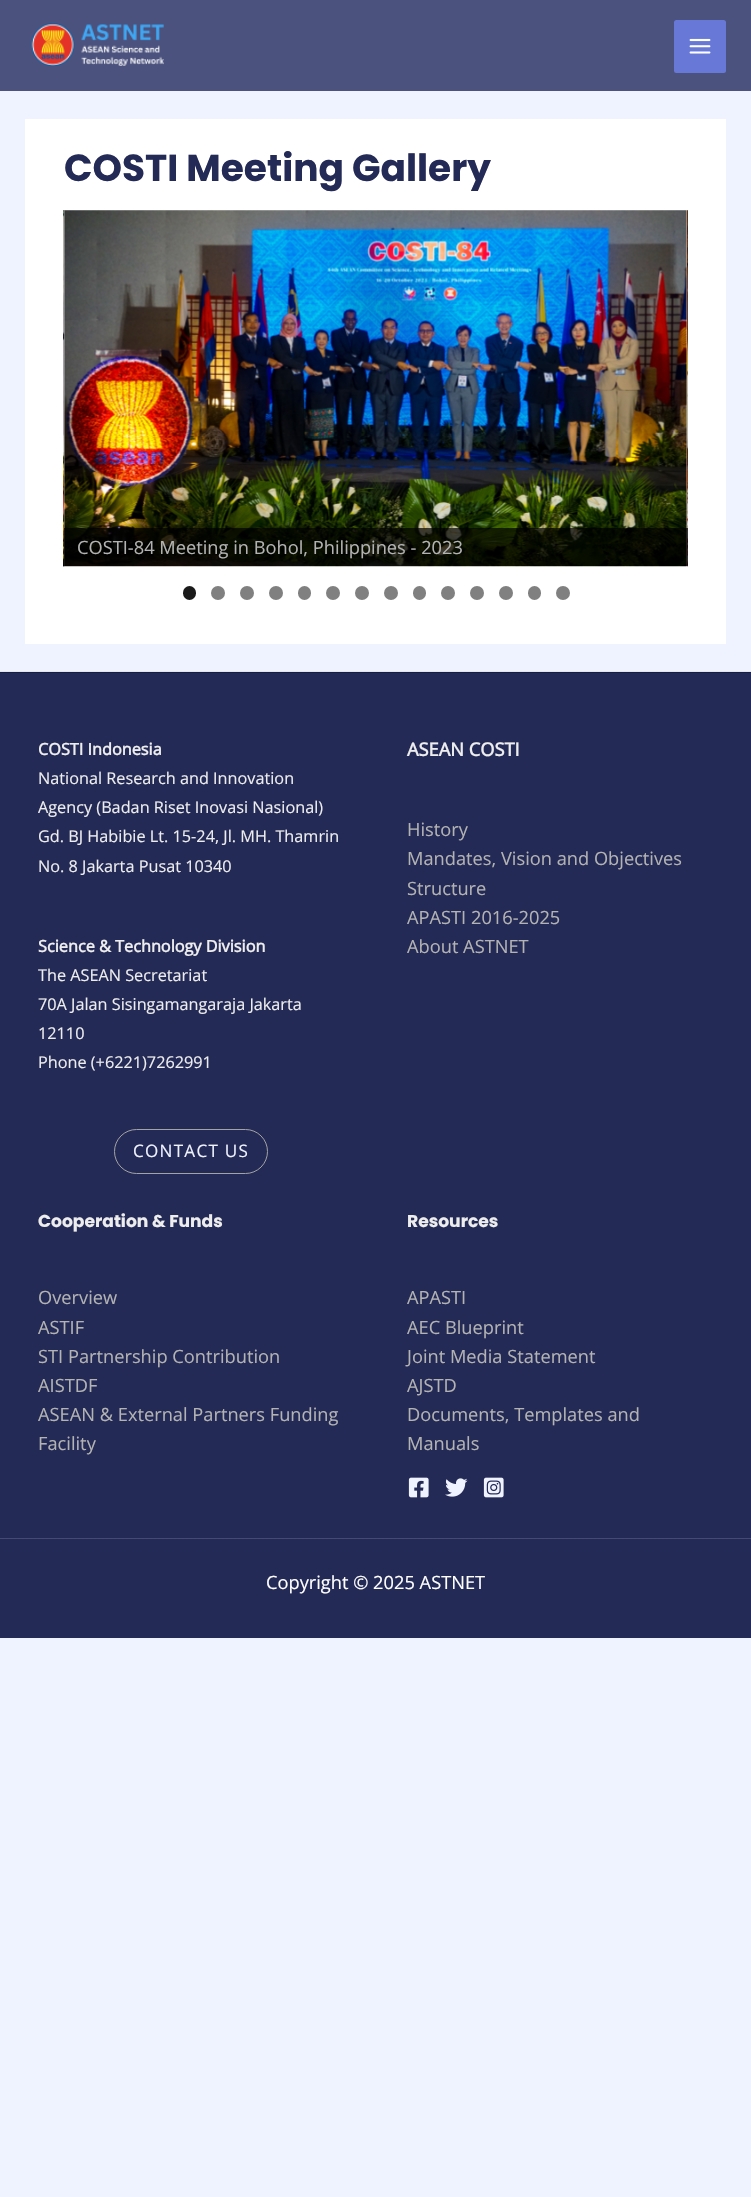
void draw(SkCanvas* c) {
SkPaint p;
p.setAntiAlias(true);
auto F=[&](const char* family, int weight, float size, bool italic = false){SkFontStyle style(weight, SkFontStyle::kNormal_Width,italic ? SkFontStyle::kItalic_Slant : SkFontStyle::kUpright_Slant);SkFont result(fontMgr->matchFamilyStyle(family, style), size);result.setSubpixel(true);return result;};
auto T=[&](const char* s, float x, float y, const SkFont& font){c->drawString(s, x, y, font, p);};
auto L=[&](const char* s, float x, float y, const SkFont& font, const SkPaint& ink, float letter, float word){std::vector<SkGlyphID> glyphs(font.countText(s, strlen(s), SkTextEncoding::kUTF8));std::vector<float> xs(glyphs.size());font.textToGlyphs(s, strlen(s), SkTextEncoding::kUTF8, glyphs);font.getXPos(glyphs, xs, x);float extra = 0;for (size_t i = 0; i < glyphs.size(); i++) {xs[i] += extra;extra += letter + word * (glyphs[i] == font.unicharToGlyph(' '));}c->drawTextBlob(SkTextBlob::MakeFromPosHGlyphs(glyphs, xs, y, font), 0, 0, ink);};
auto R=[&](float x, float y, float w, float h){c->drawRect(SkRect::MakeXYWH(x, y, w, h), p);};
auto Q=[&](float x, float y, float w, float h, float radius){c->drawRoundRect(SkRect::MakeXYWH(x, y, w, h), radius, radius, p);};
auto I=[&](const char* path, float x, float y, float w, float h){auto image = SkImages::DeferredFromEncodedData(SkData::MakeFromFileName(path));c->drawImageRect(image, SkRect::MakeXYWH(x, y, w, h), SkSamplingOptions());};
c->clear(0xffeff2ff);
p.setColor(0xff4b527e);
R(0,0,751,91);
I("1.png",30,23,134,44);
p.setColor(0xff6878d6);
Q(674,20,52,53,2.5);
I("2.png",689,38,22,16);
p.setColor(0xffffffff);
R(25,119,701,525);
auto f1 = F("Poppins",700,37.5);
p.setColor(0xff242a56);
T("COSTI Meeting Gallery",64,181,f1);
I("3.png",63,210,2,357);
I("4.png",64,210,624,357);
p.setColor(0xb3000000);
R(64,528,622,38);
auto f2 = F("Open Sans",400,18.25);
p.setColor(0xffb3b3b3);
T("COSTI-84 Meeting in Bohol, Philippines - 2023",77,554,f2);
I("5.png",687,210,1,357);
p.setColor(0xb3000000);
R(686,528,2,38);
p.setColor(0xff1a1a1a);
Q(183,586,13,14,6.5);
p.setColor(0xff808080);
c->drawCircle(218,593,7,p);
c->drawCircle(247,593,7,p);
c->drawCircle(276,593,7,p);
Q(298,586,13,14,6.5);
c->drawCircle(333,593,7,p);
c->drawCircle(362,593,7,p);
c->drawCircle(391,593,7,p);
Q(413,586,13,14,6.5);
c->drawCircle(448,593,7,p);
c->drawCircle(477,593,7,p);
c->drawCircle(506,593,7,p);
Q(528,586,13,14,6.5);
c->drawCircle(563,593,7,p);
p.setColor(0xff132043);
R(0,672,751,1);
p.setColor(0xff242a56);
R(0,673,751,865);
p.setColor(0xffe6e6e6);
R(0,671,751,1);
auto f3 = F("Open Sans",700,16.25);
p.setColor(0xffededed);
T("COSTI Indonesia",38,755,f3);
auto f4 = F("Open Sans",400,16.25);
T("National Research and Innovation",38,784,f4);
T("Agency (Badan Riset Inovasi Nasional)",38,813,f4);
T("Gd. BJ Habibie Lt. 15-24, Jl. MH. Thamrin",38,842,f4);
T("No. 8 Jakarta Pusat 10340",38,872,f4);
T("Science & Technology Division",38,952,f3);
T("The ASEAN Secretariat",38,981,f4);
T("70A Jalan Sisingamangaraja Jakarta",38,1010,f4);
T("12110",38,1039,f4);
T("Phone (+6221)7262991",38,1068,f4);
p.setStroke(true);
p.setStrokeWidth(1);
p.setColor(0xffa3a3a3);
c->drawRoundRect(SkRect::MakeXYWH(114.5,1129.5,153,44),22,22,p);
auto f5 = F("Open Sans",400,17.1);
p.setStroke(false);
p.setColor(0xffeff2ff);
L("CONTACT US",133,1157,f5,p,1.25,0);
auto f6 = F("Open Sans",700,18.25);
p.setColor(0xffededed);
T("ASEAN COSTI",407,756,f6);
p.setColor(0xffb3b3b3);
T("History",407,836,f2);
T("Mandates, Vision and Objectives",407,865,f2);
T("Structure",407,895,f2);
T("APASTI 2016-2025",407,924,f2);
T("About ASTNET",407,953,f2);
auto f7 = F("Poppins",700,17.1);
p.setColor(0xffededed);
T("Cooperation & Funds",38,1227,f7);
p.setColor(0xffb3b3b3);
T("Overview",38,1304,f2);
T("ASTIF",38,1334,f2);
T("STI Partnership Contribution",38,1363,f2);
T("AISTDF",38,1392,f2);
T("ASEAN & External Partners Funding",38,1421,f2);
T("Facility",38,1450,f2);
p.setColor(0xffededed);
T("Resources",407,1227,f7);
p.setColor(0xffb3b3b3);
T("APASTI",407,1304,f2);
T("AEC Blueprint",407,1334,f2);
T("Joint Media Statement",407,1363,f2);
T("AJSTD",407,1392,f2);
T("Documents, Templates and",407,1421,f2);
T("Manuals",407,1450,f2);
I("6.png",408,1477,21,21);
I("7.png",445,1478,23,19);
I("8.png",483,1477,21,21);
p.setColor(0xff242a56);
R(0,1539,751,99);
p.setColor(0xff454a75);
R(0,1538,751,1);
p.setColor(0xffffffff);
T("Copyright © 2025 ASTNET",266,1589,f2);
}
